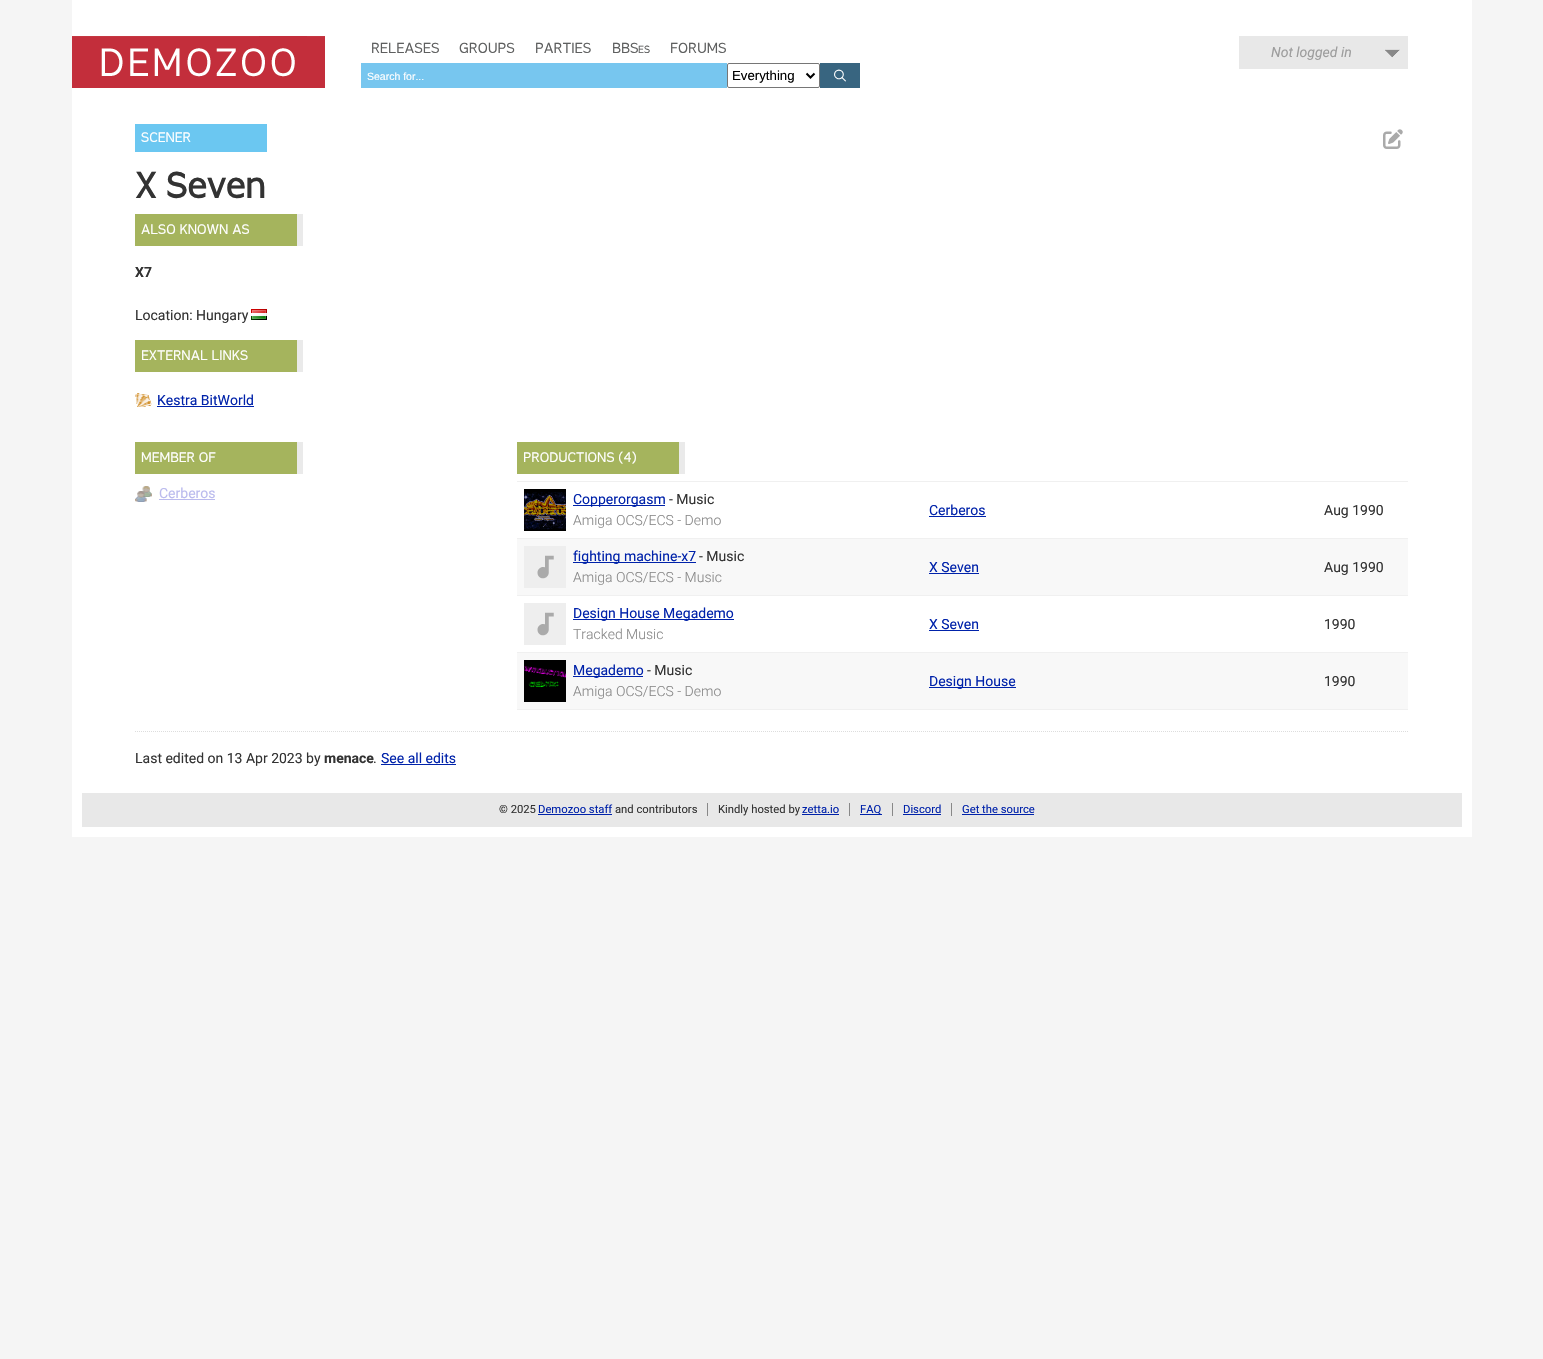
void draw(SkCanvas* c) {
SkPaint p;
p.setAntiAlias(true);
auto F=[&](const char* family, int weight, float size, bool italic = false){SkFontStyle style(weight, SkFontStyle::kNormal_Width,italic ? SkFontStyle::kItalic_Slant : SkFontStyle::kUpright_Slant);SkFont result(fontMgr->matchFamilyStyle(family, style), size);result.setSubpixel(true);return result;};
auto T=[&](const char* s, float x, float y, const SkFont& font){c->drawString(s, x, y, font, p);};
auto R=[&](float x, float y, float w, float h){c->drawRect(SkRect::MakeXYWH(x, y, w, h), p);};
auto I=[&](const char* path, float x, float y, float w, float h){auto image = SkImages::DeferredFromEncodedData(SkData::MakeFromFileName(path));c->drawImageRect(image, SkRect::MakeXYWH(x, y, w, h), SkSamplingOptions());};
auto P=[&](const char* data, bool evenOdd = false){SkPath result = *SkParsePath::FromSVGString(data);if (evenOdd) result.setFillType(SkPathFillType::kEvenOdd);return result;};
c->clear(0xfff5f5f5);
p.setColor(0xffffffff);
R(72,0,1400,783);
p.setColor(0xffc32e3b);
R(72,77,253,11);
I("1.png",72,36,253,41);
auto f1 = F("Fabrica",400,14);
p.setColor(0xff5e5f5f);
T("RELEASES",371,53,f1);
T("GROUPS",459,53,f1);
T("PARTIES",535,53,f1);
T("BBS",612,53,f1);
auto f2 = F("Fabrica",400,10);
T("ES",638,53,f2);
T("FORUMS",670,53,f1);
p.setColor(0xff77c6ef);
R(361,63,366,25);
auto f3 = F("Liberation Sans",400,10.5);
p.setColor(0xffffffff);
T("Search for...",367,80,f3);
p.setStroke(true);
p.setStrokeWidth(1);
p.setColor(0xff767676);
c->drawRoundRect(SkRect::MakeXYWH(727.5,63.5,92,24),1.5,1.5,p);
p.setStrokeWidth(2);
p.setColor(0xff000000);
c->drawPath(P("M806.5 73.5l4 4l4-4"),p);
auto f4 = F("Liberation Sans",400,13.25);
p.setStroke(false);
T("Everything",732,80,f4);
p.setColor(0xff386580);
R(820,63,40,25);
I("2.png",834,69,12,13);
p.setColor(0xffe8e8e8);
R(1239,36,169,33);
I("3.png",1385,49,15,9);
auto f5 = F("Roboto",400,14,true);
p.setColor(0xff9d9d9d);
T("Not logged in",1271,57,f5);
p.setColor(0xff6bc7f1);
R(135,124,132,28);
auto f6 = F("Fabrica",400,13.25);
p.setColor(0xffffffff);
T("SCENER",141,142,f6);
I("4.png",1383,129,20,20);
auto f7 = F("Fabrica",700,34.5);
p.setColor(0xff333333);
T("X Seven",135,198,f7);
p.setColor(0xffa5b45d);
R(135,214,162,32);
p.setColor(0xffeaeaea);
R(297,214,6,32);
p.setColor(0xffffffff);
T("ALSO KNOWN AS",141,234,f6);
auto f8 = F("Roboto",700,14);
p.setColor(0xff333333);
T("X7",135,277,f8);
auto f9 = F("Roboto",400,14);
T("Location: Hungary",135,320,f9);
I("5.png",251,309,16,11);
p.setColor(0xffa5b45d);
R(135,340,162,32);
p.setColor(0xffeaeaea);
R(297,340,6,32);
p.setColor(0xffffffff);
T("EXTERNAL LINKS",141,360,f6);
I("6.png",135,393,17,14);
p.setColor(0xff0022aa);
T("Kestra BitWorld",157,405,f9);
R(157,406,97,1);
p.setColor(0xffa5b45d);
R(135,442,162,32);
p.setColor(0xffeaeaea);
R(297,442,6,32);
p.setColor(0xffffffff);
T("MEMBER OF",141,462,f6);
I("7.png",135,486,17,16);
p.setColor(0xffbbbbee);
T("Cerberos",159,498,f9);
R(159,499,56,1);
p.setColor(0xffa5b45d);
R(517,442,162,32);
p.setColor(0xffeaeaea);
R(679,442,6,32);
p.setColor(0xffffffff);
T("PRODUCTIONS (4)",523,462,f6);
p.setColor(0xfff0f0f0);
R(517,481,891,1);
I("8.png",524,489,42,42);
p.setColor(0xff0022aa);
R(573,505,92,1);
T("Copperorgasm",573,504,f9);
p.setColor(0xff333333);
T("- Music",669,504,f9);
auto f10 = F("Roboto",300,14);
p.setColor(0xff888888);
T("Amiga OCS/ECS - Demo",573,525,f10);
p.setColor(0xff0022aa);
T("Cerberos",929,515,f9);
R(929,516,57,1);
p.setColor(0xff333333);
T("Aug 1990",1324,515,f9);
p.setColor(0xfff8f8f8);
R(517,539,891,56);
p.setColor(0xfff0f0f0);
R(517,538,891,1);
p.setColor(0xffeeeeee);
R(524,546,42,42);
I("9.png",537,555,17,24);
p.setColor(0xff0022aa);
R(573,562,123,1);
T("fighting machine-x7",573,561,f9);
p.setColor(0xff333333);
T("- Music",699,561,f9);
p.setColor(0xff888888);
T("Amiga OCS/ECS - Music",573,582,f10);
p.setColor(0xff0022aa);
T("X Seven",929,572,f9);
R(929,573,50,1);
p.setColor(0xff333333);
T("Aug 1990",1324,572,f9);
p.setColor(0xfff0f0f0);
R(517,595,891,1);
p.setColor(0xffeeeeee);
R(524,603,42,42);
I("9.png",537,612,17,24);
p.setColor(0xff0022aa);
R(573,619,161,1);
T("Design House Megademo",573,618,f9);
p.setColor(0xff888888);
T("Tracked Music",573,639,f10);
p.setColor(0xff0022aa);
T("X Seven",929,629,f9);
R(929,630,50,1);
p.setColor(0xff333333);
T("1990",1324,629,f9);
p.setColor(0xfff8f8f8);
R(517,653,891,56);
p.setColor(0xfff0f0f0);
R(517,652,891,1);
R(517,709,891,1);
I("10.png",524,660,42,42);
p.setColor(0xff0022aa);
R(573,676,70,1);
T("Megademo",573,675,f9);
p.setColor(0xff333333);
T("- Music",647,675,f9);
p.setColor(0xff888888);
T("Amiga OCS/ECS - Demo",573,696,f10);
p.setColor(0xff0022aa);
R(929,687,87,1);
T("Design House",929,686,f9);
p.setColor(0xff333333);
T("1990",1324,686,f9);
p.setStroke(true);
p.setStrokeWidth(1);
p.setColor(0xffdddddd);
p.setPathEffect(SkDashPathEffect::Make({{1,1}}, 0));
c->drawPath(P("M135 731.5h1274"),p);
p.setPathEffect(nullptr);
p.setStroke(false);
p.setColor(0xff333333);
T("Last edited on 13 Apr 2023 by",135,763,f9);
T("menace",324,763,f8);
T(".",373,763,f9);
p.setColor(0xff0022aa);
T("See all edits",381,763,f9);
R(381,764,75,1);
p.setColor(0xffe8e8e8);
c->drawRect(SkRect::MakeXYWH(77,788,1390,44),p);
p.setStroke(true);
p.setStrokeWidth(10);
p.setColor(0xffffffff);
c->drawRect(SkRect::MakeXYWH(77,788,1390,44),p);
auto f11 = F("Roboto",400,11.25);
p.setStroke(false);
p.setColor(0xff333333);
T("© 2025",499,813,f11);
p.setColor(0xff0022aa);
T("Demozoo staff",538,813,f11);
R(538,814,74,1);
p.setColor(0xff333333);
T("and contributors",615,813,f11);
T("Kindly hosted by",718,813,f11);
p.setColor(0xff888888);
R(707,803,1,13);
p.setColor(0xff0022aa);
R(802,814,37,1);
T("zetta.io",802,813,f11);
R(860,814,22,1);
T("FAQ",860,813,f11);
p.setColor(0xff888888);
R(849,803,1,13);
p.setColor(0xff0022aa);
T("Discord",903,813,f11);
p.setColor(0xff888888);
R(892,803,1,13);
p.setColor(0xff0022aa);
R(903,814,38,1);
T("Get the source",962,813,f11);
p.setColor(0xff888888);
R(951,803,1,13);
p.setColor(0xff0022aa);
R(962,814,72,1);
}
